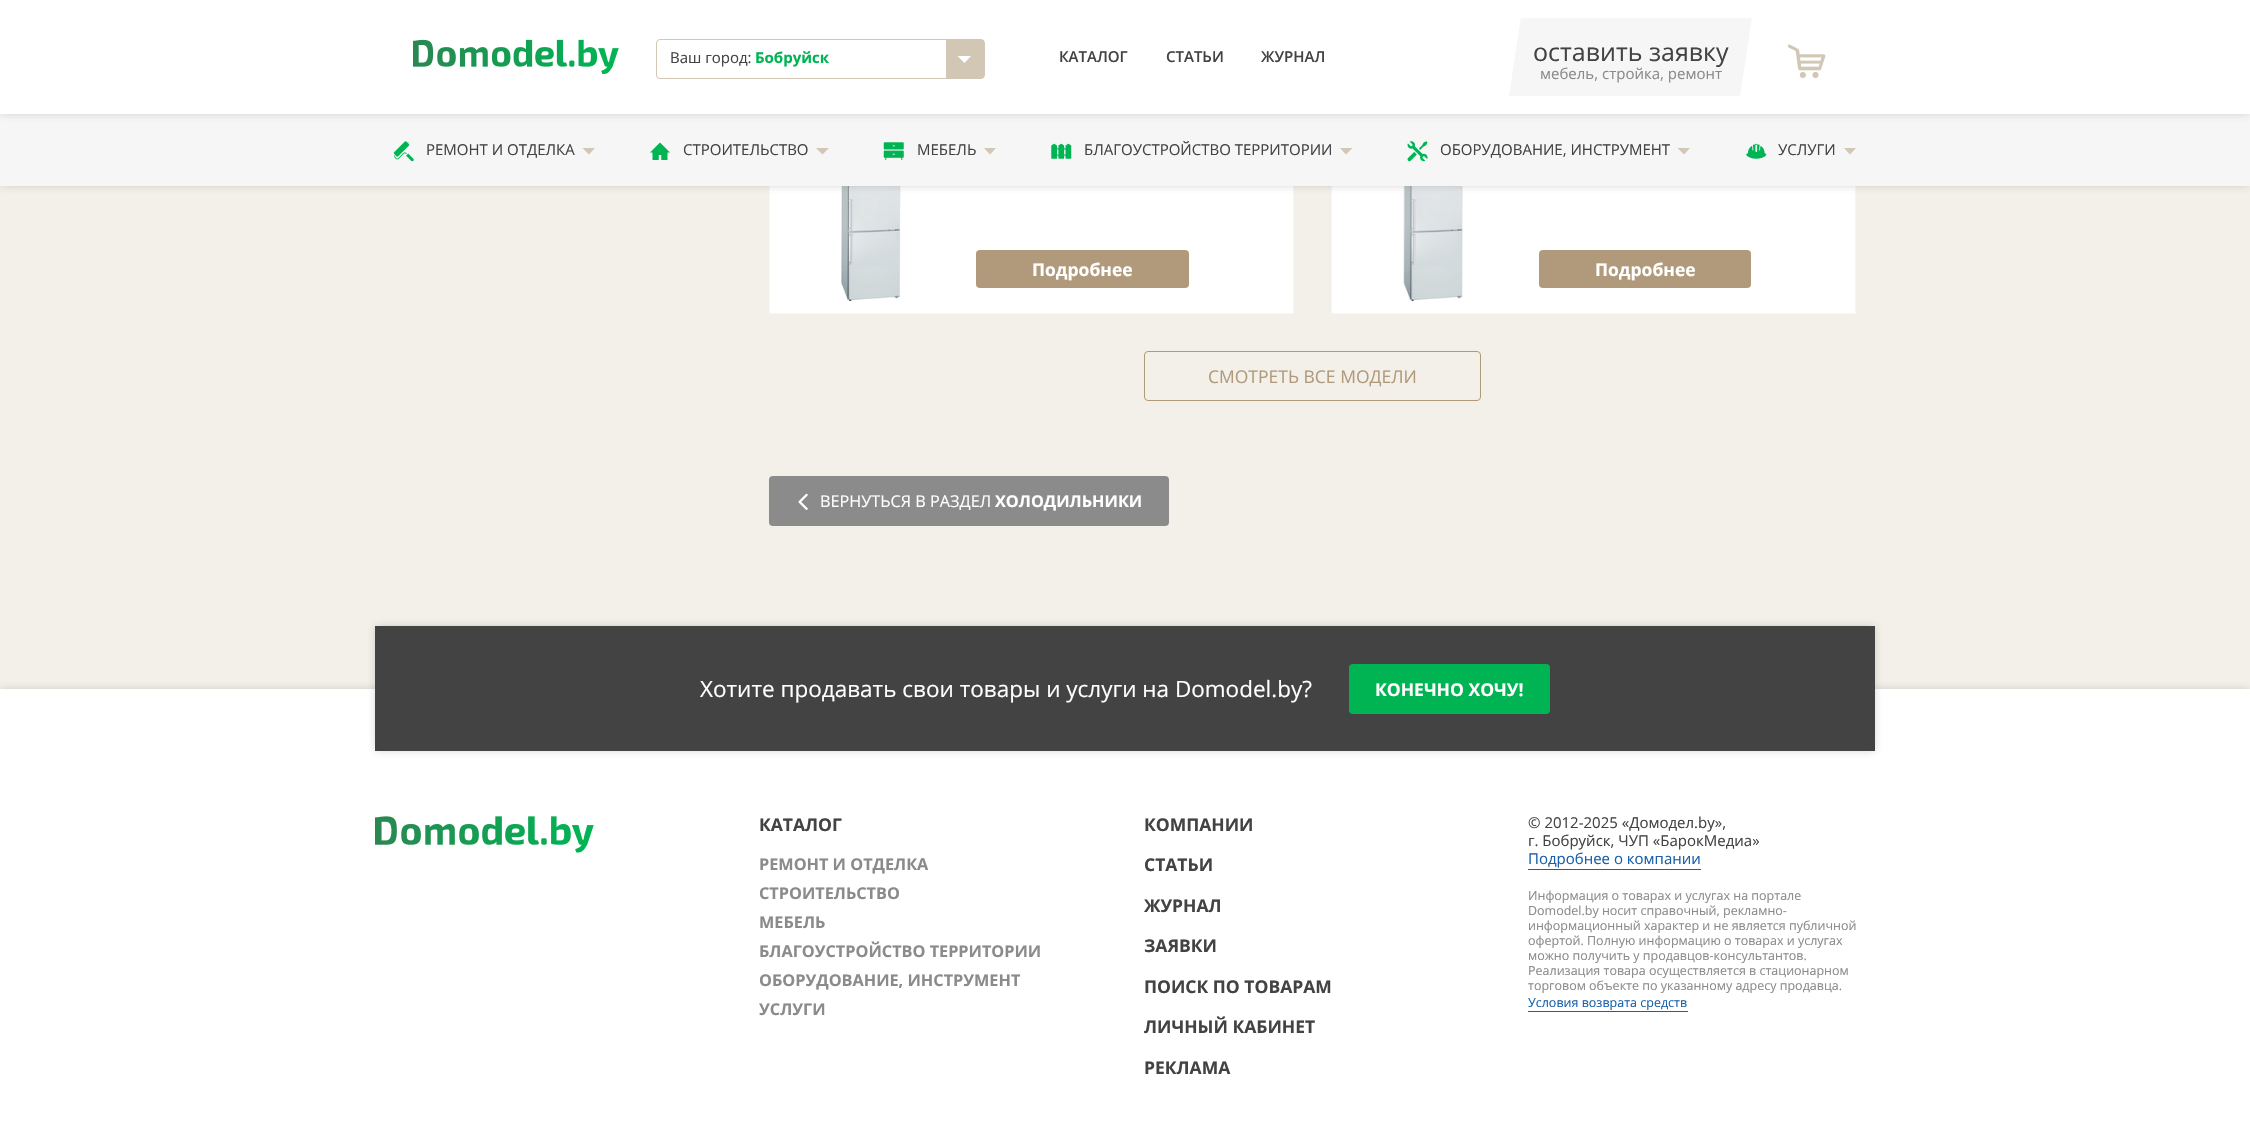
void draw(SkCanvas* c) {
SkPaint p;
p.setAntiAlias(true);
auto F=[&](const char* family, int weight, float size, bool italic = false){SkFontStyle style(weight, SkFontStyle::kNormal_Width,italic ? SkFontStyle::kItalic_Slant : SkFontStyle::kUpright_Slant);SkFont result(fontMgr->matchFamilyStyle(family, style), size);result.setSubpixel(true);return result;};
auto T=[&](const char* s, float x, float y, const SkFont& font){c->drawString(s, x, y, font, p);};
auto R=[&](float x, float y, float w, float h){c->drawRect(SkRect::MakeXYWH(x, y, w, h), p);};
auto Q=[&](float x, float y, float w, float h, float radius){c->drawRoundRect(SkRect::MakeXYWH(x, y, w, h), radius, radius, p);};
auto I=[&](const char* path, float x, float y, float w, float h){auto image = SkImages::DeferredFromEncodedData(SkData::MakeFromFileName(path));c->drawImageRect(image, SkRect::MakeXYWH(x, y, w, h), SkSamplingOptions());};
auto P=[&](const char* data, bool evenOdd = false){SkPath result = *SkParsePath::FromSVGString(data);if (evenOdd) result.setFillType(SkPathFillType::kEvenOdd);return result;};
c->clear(0xfff3f0e9);
p.setColor(0xffffffff);
R(770,186,523,127);
p.setStroke(true);
p.setStrokeWidth(1);
p.setColor(0xfff6f6f6);
c->drawRect(SkRect::MakeXYWH(769.5,114.5,524,199),p);
I("9.png",841,186,60,116);
p.setStroke(false);
p.setColor(0xffffffff);
R(1332,186,523,127);
p.setStroke(true);
p.setColor(0xfff6f6f6);
c->drawRect(SkRect::MakeXYWH(1331.5,114.5,524,199),p);
I("10.png",1403,186,60,116);
p.setStroke(false);
p.setColor(0x33434343);
p.setMaskFilter(SkMaskFilter::MakeBlur(kNormal_SkBlurStyle, 4));
c->drawRect(SkRect::MakeXYWH(0,114,2250,72),p);
p.setMaskFilter(nullptr);
p.setColor(0xfff6f6f6);
R(0,114,2250,72);
p.setColor(0x33434343);
p.setMaskFilter(SkMaskFilter::MakeBlur(kNormal_SkBlurStyle, 4));
c->drawRect(SkRect::MakeXYWH(0,0,2250,114),p);
p.setMaskFilter(nullptr);
p.setColor(0xffffffff);
R(0,0,2250,114);
I("1.png",413,39,206,35);
p.setStroke(true);
p.setColor(0xffd2c7b5);
c->drawRoundRect(SkRect::MakeXYWH(656.5,39.5,328,39),3.5,3.5,p);
auto f1 = F("Open Sans",400,15);
p.setStroke(false);
p.setColor(0xff434343);
T("Ваш город:",670,63,f1);
auto f2 = F("Open Sans",700,15);
p.setColor(0xff00b453);
T("Бобруйск",755,63,f2);
p.setColor(0xffd2c7b5);
R(946,40,38,38);
p.setColor(0xffffffff);
c->drawPath(P("M971 56l-6.5 7l-7-7z"),p);
auto f3 = F("Open Sans",600,15);
p.setColor(0xff434343);
T("КАТАЛОГ",1059,62,f3);
T("СТАТЬИ",1166,62,f3);
T("ЖУРНАЛ",1261,62,f3);
c->save();
c->clipRect(SkRect::MakeXYWH(1509,18,244,78));
p.setColor(0xfff6f6f6);
c->drawPath(P("M1521 17h231l-12 79h-231z"),p);
c->restore();
auto f4 = F("Open Sans",400,25);
p.setColor(0xff434343);
T("оставить заявку",1533,61,f4);
p.setColor(0xff8b8b8b);
T("мебель, стройка, ремонт",1540,79,f1);
I("2.png",1787,44,39,34);
I("3.png",393,141,21,21);
p.setColor(0xff434343);
T("РЕМОНТ И ОТДЕЛКА",426,155,f1);
p.setColor(0xffd2c7b5);
c->drawPath(P("M595 148l-6 6.5l-6.5-6.5z"),p);
I("4.png",650,142,20,18);
p.setColor(0xff434343);
T("СТРОИТЕЛЬСТВО",683,155,f1);
p.setColor(0xffd2c7b5);
c->drawPath(P("M829 148l-6.5 6.5l-6.5-6.5z"),p);
I("5.png",883,142,21,19);
p.setColor(0xff434343);
T("МЕБЕЛЬ",917,155,f1);
p.setColor(0xffd2c7b5);
c->drawPath(P("M996 148l-6 6.5l-6-6.5z"),p);
I("6.png",1051,143,21,16);
p.setColor(0xff434343);
T("БЛАГОУСТРОЙСТВО ТЕРРИТОРИИ",1084,155,f1);
p.setColor(0xffd2c7b5);
c->drawPath(P("M1352.5 148l-6.5 6.5l-6-6.5z"),p);
I("7.png",1407,141,21,21);
p.setColor(0xff434343);
T("ОБОРУДОВАНИЕ, ИНСТРУМЕНТ",1440,155,f1);
p.setColor(0xffd2c7b5);
c->drawPath(P("M1690 148l-6 6.5l-6.5-6.5z"),p);
I("8.png",1746,143,21,16);
p.setColor(0xff434343);
T("УСЛУГИ",1778,155,f1);
p.setColor(0xffd2c7b5);
c->drawPath(P("M1856 148l-6 6.5l-6-6.5z"),p);
p.setColor(0xffb19a7b);
Q(976,250,213,38,4);
auto f5 = F("Open Sans",700,17.5);
p.setColor(0xffffffff);
T("Подробнее",1032,276,f5);
p.setColor(0xffb19a7b);
Q(1539,250,212,38,4);
p.setColor(0xffffffff);
T("Подробнее",1595,276,f5);
p.setStroke(true);
p.setColor(0xffb19a7b);
c->drawRoundRect(SkRect::MakeXYWH(1144.5,351.5,336,49),3.5,3.5,p);
auto f6 = F("Open Sans",400,17.5);
p.setStroke(false);
T("СМОТРЕТЬ ВСЕ МОДЕЛИ",1208,383,f6);
p.setColor(0xff8b8b8b);
Q(769,476,400,50,4);
I("11.png",798,493,10,17);
auto f7 = F("Open Sans",400,16.25);
p.setColor(0xffffffff);
T("ВЕРНУТЬСЯ В РАЗДЕЛ",820,507,f7);
auto f8 = F("Open Sans",700,16.25);
T("ХОЛОДИЛЬНИКИ",995,507,f8);
p.setColor(0x33434343);
p.setMaskFilter(SkMaskFilter::MakeBlur(kNormal_SkBlurStyle, 4));
c->drawRect(SkRect::MakeXYWH(0,689,2250,456),p);
p.setMaskFilter(nullptr);
p.setColor(0xffffffff);
R(0,689,2250,456);
p.setColor(0x33434343);
p.setMaskFilter(SkMaskFilter::MakeBlur(kNormal_SkBlurStyle, 4));
c->drawRect(SkRect::MakeXYWH(375,626,1500,125),p);
p.setMaskFilter(nullptr);
p.setColor(0xff434343);
R(375,626,1500,125);
auto f9 = F("Open Sans",400,22.5);
p.setColor(0xffffffff);
T("Хотите продавать свои товары и услуги на Domodel.by?",700,697,f9);
p.setColor(0xff00b453);
Q(1349,664,201,50,4);
p.setColor(0xffffffff);
T("КОНЕЧНО ХОЧУ!",1375,696,f5);
I("12.png",375,816,219,37);
p.setColor(0xff434343);
T("КАТАЛОГ",759,831,f5);
p.setColor(0xff8b8b8b);
T("РЕМОНТ И ОТДЕЛКА",759,870,f8);
T("СТРОИТЕЛЬСТВО",759,899,f8);
T("МЕБЕЛЬ",759,928,f8);
T("БЛАГОУСТРОЙСТВО ТЕРРИТОРИИ",759,957,f8);
T("ОБОРУДОВАНИЕ, ИНСТРУМЕНТ",759,986,f8);
T("УСЛУГИ",759,1015,f8);
p.setColor(0xff434343);
T("КОМПАНИИ",1144,831,f5);
T("СТАТЬИ",1144,871,f5);
T("ЖУРНАЛ",1144,912,f5);
T("ЗАЯВКИ",1144,952,f5);
T("ПОИСК ПО ТОВАРАМ",1144,993,f5);
T("ЛИЧНЫЙ КАБИНЕТ",1144,1033,f5);
T("РЕКЛАМА",1144,1074,f5);
T("© 2012-2025 «Домодел.by»,",1528,828,f1);
T("г. Бобруйск, ЧУП «БарокМедиа»",1528,846,f1);
p.setColor(0xff1860aa);
T("Подробнее о компании",1528,864,f1);
R(1528,869,173,1);
auto f10 = F("Open Sans",400,12.5);
p.setColor(0xff8b8b8b);
T("Информация о товарах и услугах на портале",1528,900,f10);
T("Domodel.by носит справочный, рекламно-",1528,915,f10);
T("информационный характер и не является публичной",1528,930,f10);
T("офертой. Полную информацию о товарах и услугах",1528,945,f10);
T("можно получить у продавцов-консультантов.",1528,960,f10);
T("Реализация товара осуществляется в стационарном",1528,975,f10);
T("торговом объекте по указанному адресу продавца.",1528,990,f10);
p.setColor(0xff1860aa);
T("Условия возврата средств",1528,1007,f10);
R(1528,1011,160,1);
}
